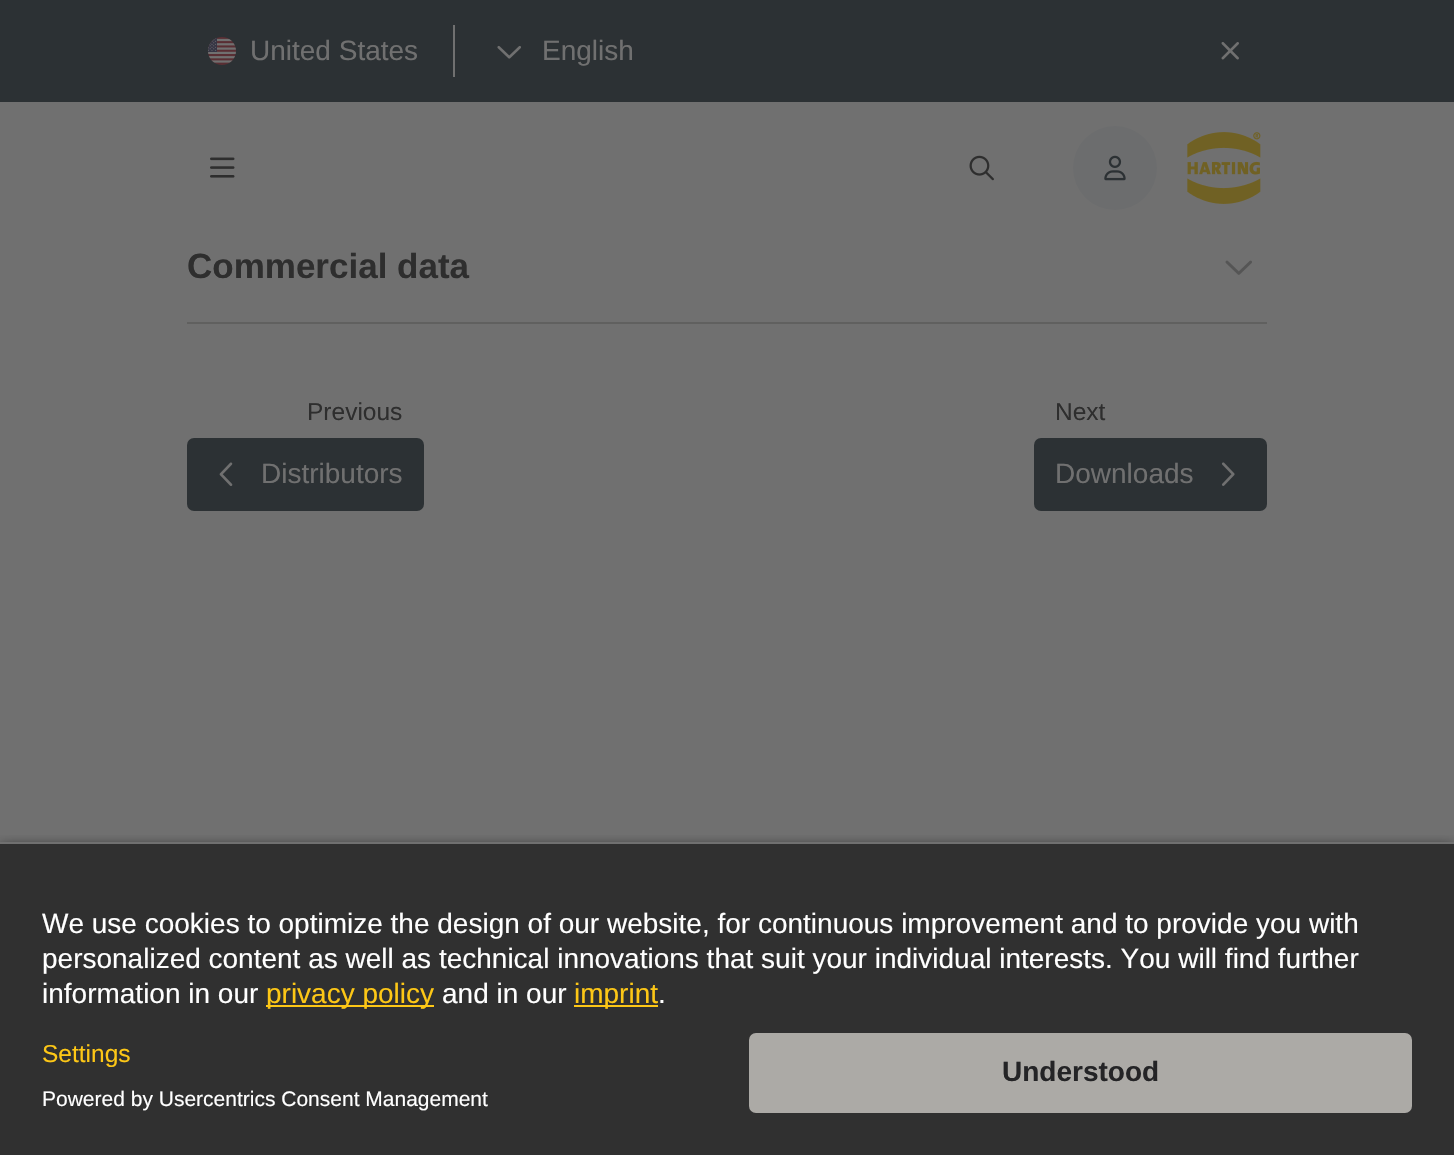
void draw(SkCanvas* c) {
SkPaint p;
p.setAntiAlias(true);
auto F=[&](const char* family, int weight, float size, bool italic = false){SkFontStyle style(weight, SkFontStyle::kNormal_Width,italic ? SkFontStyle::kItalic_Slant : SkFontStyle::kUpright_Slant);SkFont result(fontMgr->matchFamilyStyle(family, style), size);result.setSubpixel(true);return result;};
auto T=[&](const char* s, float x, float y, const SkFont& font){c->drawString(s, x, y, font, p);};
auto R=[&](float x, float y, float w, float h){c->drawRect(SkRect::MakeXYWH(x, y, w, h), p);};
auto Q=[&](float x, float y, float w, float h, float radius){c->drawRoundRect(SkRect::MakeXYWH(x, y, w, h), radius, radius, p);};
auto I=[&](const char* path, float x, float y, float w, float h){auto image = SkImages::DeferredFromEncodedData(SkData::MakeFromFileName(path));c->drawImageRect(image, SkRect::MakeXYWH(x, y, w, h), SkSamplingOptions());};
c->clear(0xff707070);
p.setColor(0xff2c3134);
R(0,0,1454,102);
I("1.png",208,37,28,28);
auto f1 = F("Liberation Sans",400,28);
p.setColor(0xff707070);
T("United States",250,60,f1);
R(453,25,2,52);
I("2.png",497,45,24,14);
T("English",542,60,f1);
I("3.png",1221,42,18,18);
I("4.png",210,157,25,21);
I("5.png",969,155,25,26);
p.setColor(0xff6c6d6e);
c->drawCircle(1115,168,42,p);
I("6.png",1104,155,22,26);
I("7.png",1187,132,74,72);
p.setColor(0xff60605f);
R(187,322,1080,2);
auto f2 = F("Liberation Sans",700,35);
p.setColor(0xff2e2e2e);
T("Commercial data",187,278,f2);
I("8.png",1225,260,27,15);
auto f3 = F("Liberation Sans",400,24.5);
T("Previous",307,420,f3);
p.setColor(0xff2c3134);
Q(187,438,237,73,7);
I("9.png",219,462,14,24);
p.setColor(0xff707070);
T("Distributors",261,483,f1);
p.setColor(0xff2e2e2e);
T("Next",1055,420,f3);
p.setColor(0xff2c3134);
Q(1034,438,233,73,7);
p.setColor(0xff707070);
T("Downloads",1055,483,f1);
I("10.png",1221,462,14,24);
c->save();
c->clipRect(SkRect::MakeXYWH(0,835,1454,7));
p.setColor(0xcc000000);
p.setMaskFilter(SkMaskFilter::MakeBlur(kNormal_SkBlurStyle, 6));
c->drawRect(SkRect::MakeXYWH(0,847,1454,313),p);
p.setMaskFilter(nullptr);
c->restore();
p.setColor(0xff303030);
R(0,844,1454,311);
p.setColor(0xffffffff);
T("We use cookies to optimize the design of our website, for continuous improvement and to provide you with",42,933,f1);
T("personalized content as well as technical innovations that suit your individual interests. You will find further",42,968,f1);
T("information in our",42,1003,f1);
p.setColor(0xfffdc716);
R(266,1005,168,2);
T("privacy policy",266,1003,f1);
p.setColor(0xffffffff);
T("and in our",442,1003,f1);
p.setColor(0xfffdc716);
R(574,1005,84,2);
T("imprint",574,1003,f1);
p.setColor(0xffffffff);
T(".",658,1003,f1);
p.setColor(0xfffdc716);
T("Settings",42,1062,f3);
auto f4 = F("Liberation Sans",400,21);
p.setColor(0xffffffff);
T("Powered by Usercentrics Consent Management",42,1106,f4);
p.setColor(0xffacaaa6);
Q(749,1033,663,80,7);
auto f5 = F("Liberation Sans",700,28);
p.setColor(0xff242426);
T("Understood",1002,1081,f5);
}
